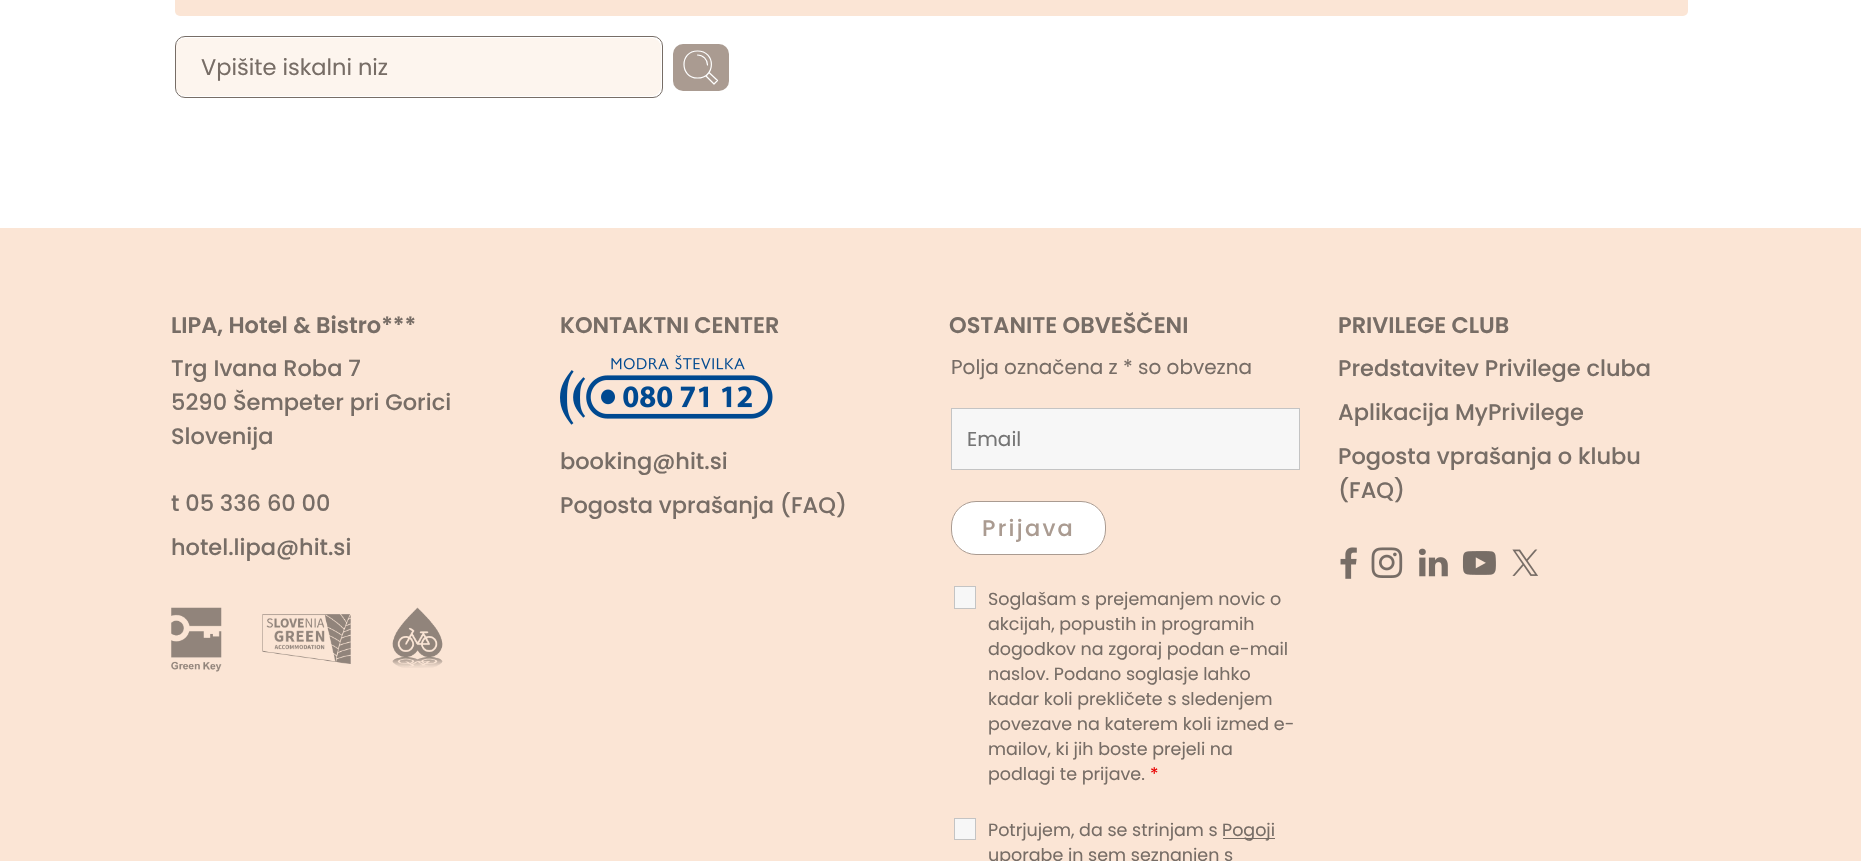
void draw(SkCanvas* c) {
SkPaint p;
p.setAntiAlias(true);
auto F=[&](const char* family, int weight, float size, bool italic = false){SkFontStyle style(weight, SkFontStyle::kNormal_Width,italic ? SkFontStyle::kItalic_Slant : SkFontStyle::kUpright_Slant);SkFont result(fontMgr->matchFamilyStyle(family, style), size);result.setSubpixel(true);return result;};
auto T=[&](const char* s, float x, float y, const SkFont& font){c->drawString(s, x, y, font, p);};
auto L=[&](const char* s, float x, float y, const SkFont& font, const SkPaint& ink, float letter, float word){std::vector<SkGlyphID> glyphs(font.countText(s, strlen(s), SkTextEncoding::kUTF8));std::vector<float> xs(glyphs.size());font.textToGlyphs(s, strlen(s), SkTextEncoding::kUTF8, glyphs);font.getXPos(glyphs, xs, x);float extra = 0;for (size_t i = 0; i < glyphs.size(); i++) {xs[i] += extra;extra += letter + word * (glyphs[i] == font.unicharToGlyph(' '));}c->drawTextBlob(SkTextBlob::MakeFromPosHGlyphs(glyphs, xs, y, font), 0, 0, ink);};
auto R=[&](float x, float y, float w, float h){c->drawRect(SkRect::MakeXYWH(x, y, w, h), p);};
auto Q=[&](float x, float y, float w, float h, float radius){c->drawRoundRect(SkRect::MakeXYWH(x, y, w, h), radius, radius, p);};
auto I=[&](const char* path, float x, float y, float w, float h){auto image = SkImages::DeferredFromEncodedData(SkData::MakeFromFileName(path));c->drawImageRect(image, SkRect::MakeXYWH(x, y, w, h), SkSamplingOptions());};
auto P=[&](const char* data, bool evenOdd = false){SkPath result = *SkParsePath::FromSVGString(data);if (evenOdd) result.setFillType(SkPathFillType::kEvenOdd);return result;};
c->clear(0xffffffff);
p.setColor(0xfffbe5d5);
Q(175,-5,1513,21,5);
p.setColor(0xfffdf5ee);
Q(176,38,485,58,9);
p.setStroke(true);
p.setStrokeWidth(1);
p.setColor(0xff776d66);
c->drawRoundRect(SkRect::MakeXYWH(175.5,36.5,487,61),9.5,9.5,p);
auto f1 = F("Poppins",400,22.5);
p.setStroke(false);
T("Vpišite iskalni niz",201,75,f1);
p.setColor(0xffaa9b91);
Q(673,44,56,47,10);
p.setStroke(true);
p.setStrokeWidth(1.2);
p.setStrokeCap(SkPaint::kRound_Cap);
p.setStrokeJoin(SkPaint::kRound_Join);
p.setColor(0xffffffff);
c->drawPath(P("M697.5 55c5.5 0 10 4.5 10 10m10 15.5l-3.5 3.5l-8-8l3-3.5zm-20-29.5c18.5 0 18.5 27 0 27c-18 0-18-27 0-27z"),p);
p.setStroke(false);
p.setColor(0xfffbe5d5);
R(0,228,1861,633);
auto f2 = F("Poppins",600,22.5);
p.setColor(0xff776d66);
T("LIPA, Hotel & Bistro***",171,333,f2);
auto f3 = F("Poppins",500,22.5);
T("Trg Ivana Roba 7",171,376,f3);
T("5290 Šempeter pri Gorici",171,410,f3);
T("Slovenija",171,444,f3);
T("t 05 336 60 00",171,511,f3);
T("hotel.lipa@hit.si",171,555,f3);
I("1.png",171,607,51,65);
I("2.png",262,614,89,50);
I("3.png",392,607,51,61);
T("KONTAKTNI CENTER",560,333,f2);
I("4.png",560,355,213,70);
T("booking@hit.si",560,469,f3);
T("Pogosta vprašanja (FAQ)",560,513,f3);
T("OSTANITE OBVEŠČENI",949,333,f2);
auto f4 = F("Poppins",400,20);
T("Polja označena z * so obvezna",951,374,f4);
p.setColor(0xfff7f7f7);
c->drawRect(SkRect::MakeXYWH(951.5,408.5,348,61),p);
p.setStroke(true);
p.setStrokeWidth(1);
p.setStrokeCap(SkPaint::kButt_Cap);
p.setStrokeJoin(SkPaint::kMiter_Join);
p.setColor(0xffc4c4c4);
c->drawRect(SkRect::MakeXYWH(951.5,408.5,348,61),p);
p.setStroke(false);
p.setColor(0xff757575);
T("Email",967,446,f4);
p.setColor(0xffffffff);
c->drawRoundRect(SkRect::MakeXYWH(951.5,501.5,154,53),24.5,24.5,p);
p.setStroke(true);
p.setColor(0xffaa9b91);
c->drawRoundRect(SkRect::MakeXYWH(951.5,501.5,154,53),24.5,24.5,p);
p.setStroke(false);
L("Prijava",982,536,f3,p,2.25,0);
p.setColor(0xfff7f7f7);
c->drawRect(SkRect::MakeXYWH(954.5,586.5,21,22),p);
p.setStroke(true);
p.setColor(0xffc4c4c4);
c->drawRect(SkRect::MakeXYWH(954.5,586.5,21,22),p);
auto f5 = F("Poppins",400,17.5);
p.setStroke(false);
p.setColor(0xff776d66);
T("Soglašam s prejemanjem novic o",988,605,f5);
T("akcijah, popustih in programih",988,630,f5);
T("dogodkov na zgoraj podan e-mail",988,655,f5);
T("naslov. Podano soglasje lahko",988,680,f5);
T("kadar koli prekličete s sledenjem",988,705,f5);
T("povezave na katerem koli izmed e-",988,730,f5);
T("mailov, ki jih boste prejeli na",988,755,f5);
T("podlagi te prijave.",988,780,f5);
p.setColor(0xffe80000);
T("*",1150,780,f5);
p.setColor(0xfff7f7f7);
c->drawRect(SkRect::MakeXYWH(954.5,818.5,21,21),p);
p.setStroke(true);
p.setColor(0xffc4c4c4);
c->drawRect(SkRect::MakeXYWH(954.5,818.5,21,21),p);
p.setStroke(false);
p.setColor(0xff776d66);
T("Potrjujem, da se strinjam s",988,836,f5);
R(1223,838,52,1);
T("Pogoji",1222,836,f5);
T("uporabe in sem seznanjen s",988,861,f5);
T("PRIVILEGE CLUB",1338,333,f2);
T("Predstavitev Privilege cluba",1338,376,f3);
T("Aplikacija MyPrivilege",1338,420,f3);
T("Pogosta vprašanja o klubu",1338,464,f3);
T("(FAQ)",1338,498,f3);
I("5.png",1340,547,17,32);
I("6.png",1371,547,32,31);
I("7.png",1418,548,30,29);
I("8.png",1462,551,34,24);
I("9.png",1512,549,26,27);
}
